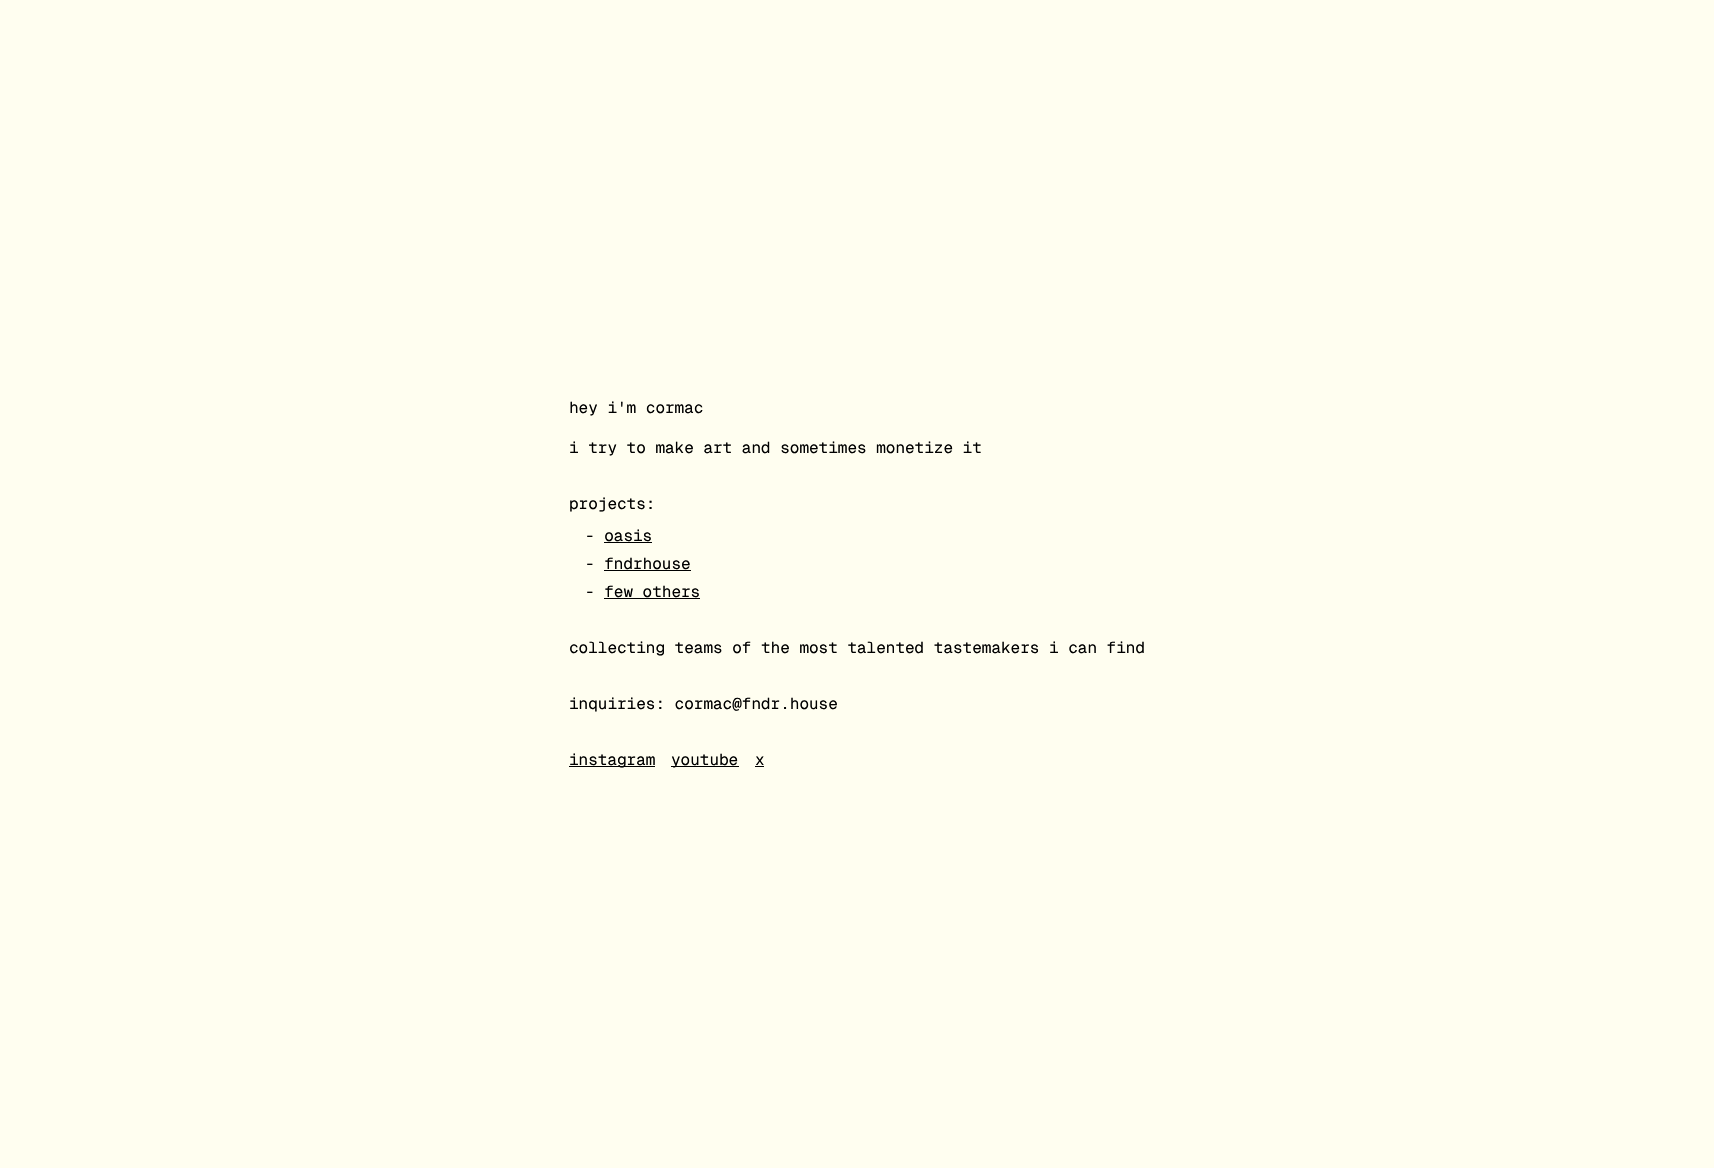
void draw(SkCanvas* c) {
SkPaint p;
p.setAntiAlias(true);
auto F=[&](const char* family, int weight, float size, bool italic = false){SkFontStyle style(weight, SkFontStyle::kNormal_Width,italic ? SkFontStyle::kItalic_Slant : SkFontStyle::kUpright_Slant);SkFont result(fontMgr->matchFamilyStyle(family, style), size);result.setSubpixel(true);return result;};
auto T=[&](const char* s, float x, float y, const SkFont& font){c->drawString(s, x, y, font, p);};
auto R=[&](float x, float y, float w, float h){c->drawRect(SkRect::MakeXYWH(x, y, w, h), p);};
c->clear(0xfffffef0);
auto f1 = F("Geist Mono",400,16);
p.setColor(0xff000000);
T("hey i'm cormac",569,413,f1);
T("i try to make art and sometimes monetize it",569,453,f1);
T("projects:",569,509,f1);
T("- oasis",585,541,f1);
R(604,542,48,1);
T("- fndrhouse",585,569,f1);
R(604,570,87,1);
T("- few others",585,597,f1);
R(604,598,96,1);
T("collecting teams of the most talented tastemakers i can find",569,653,f1);
T("inquiries: cormac@fndr.house",569,709,f1);
R(569,766,86,1);
T("instagram",569,765,f1);
R(671,766,68,1);
T("youtube",671,765,f1);
T("x",755,765,f1);
R(755,766,9,1);
}
